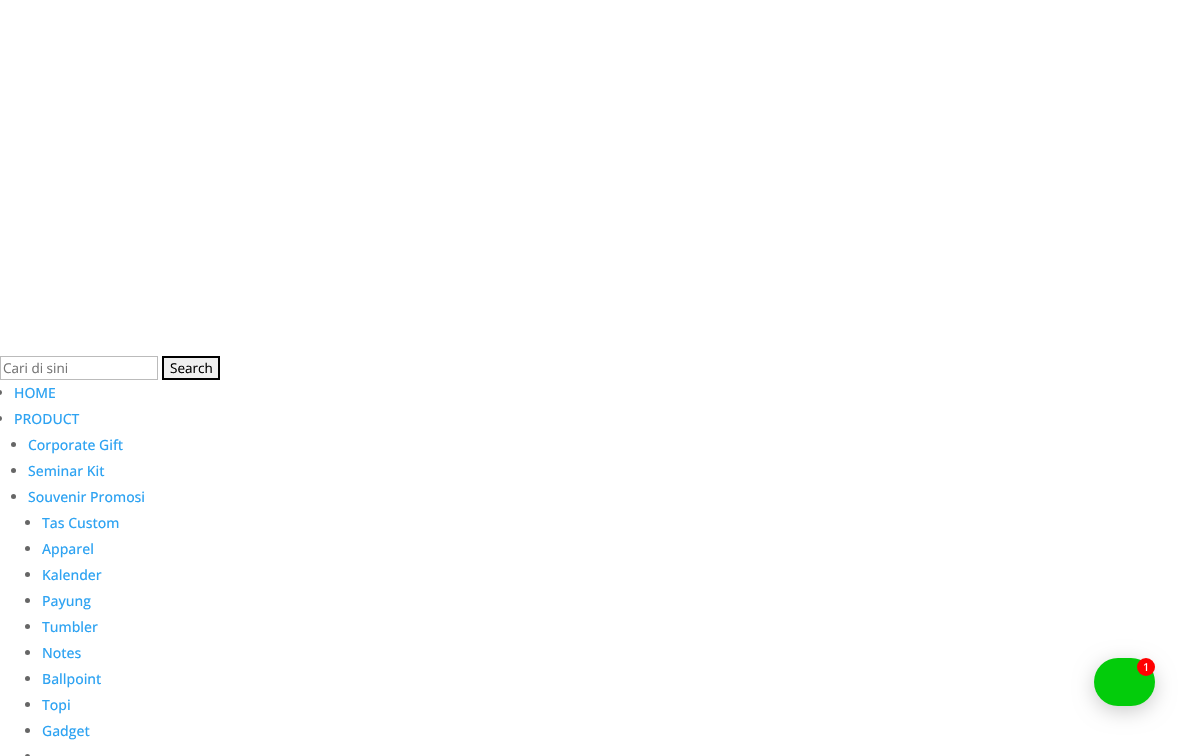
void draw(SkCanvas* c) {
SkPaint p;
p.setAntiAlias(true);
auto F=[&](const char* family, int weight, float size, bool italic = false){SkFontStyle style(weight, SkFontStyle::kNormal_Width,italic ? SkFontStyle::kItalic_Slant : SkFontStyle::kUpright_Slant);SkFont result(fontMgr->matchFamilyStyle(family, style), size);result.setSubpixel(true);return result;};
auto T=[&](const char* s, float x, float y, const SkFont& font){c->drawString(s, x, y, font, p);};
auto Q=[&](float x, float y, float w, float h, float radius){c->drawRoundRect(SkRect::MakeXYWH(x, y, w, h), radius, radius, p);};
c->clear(0xffffffff);
p.setStroke(true);
p.setStrokeWidth(1);
p.setColor(0xffbbbbbb);
c->drawRect(SkRect::MakeXYWH(.5,356.5,157,23),p);
auto f1 = F("Open Sans",400,13.5);
p.setStroke(false);
p.setColor(0xff757575);
T("Cari di sini",3,373,f1);
p.setColor(0xffefefef);
c->drawRect(SkRect::MakeXYWH(163,357,56,22),p);
p.setStroke(true);
p.setStrokeWidth(2);
p.setColor(0xff000000);
c->drawRect(SkRect::MakeXYWH(163,357,56,22),p);
p.setStroke(false);
T("Search",170,373,f1);
p.setColor(0xff666666);
c->drawCircle(-.5,392.5,2.5,p);
auto f2 = F("Open Sans",500,14);
p.setColor(0xff2ea3f2);
T("HOME",14,398,f2);
p.setColor(0xff666666);
c->drawCircle(-.5,418.5,2.5,p);
p.setColor(0xff2ea3f2);
T("PRODUCT",14,424,f2);
p.setColor(0xff666666);
c->drawCircle(13.5,444.5,2.5,p);
p.setColor(0xff2ea3f2);
T("Corporate Gift",28,450,f2);
p.setColor(0xff666666);
c->drawCircle(13.5,470.5,2.5,p);
p.setColor(0xff2ea3f2);
T("Seminar Kit",28,476,f2);
p.setColor(0xff666666);
c->drawCircle(13.5,496.5,2.5,p);
p.setColor(0xff2ea3f2);
T("Souvenir Promosi",28,502,f2);
p.setColor(0xff666666);
c->drawCircle(27.5,522.5,2.5,p);
p.setColor(0xff2ea3f2);
T("Tas Custom",42,528,f2);
p.setColor(0xff666666);
c->drawCircle(27.5,548.5,2.5,p);
p.setColor(0xff2ea3f2);
T("Apparel",42,554,f2);
p.setColor(0xff666666);
c->drawCircle(27.5,574.5,2.5,p);
p.setColor(0xff2ea3f2);
T("Kalender",42,580,f2);
p.setColor(0xff666666);
c->drawCircle(27.5,600.5,2.5,p);
p.setColor(0xff2ea3f2);
T("Payung",42,606,f2);
p.setColor(0xff666666);
c->drawCircle(27.5,626.5,2.5,p);
p.setColor(0xff2ea3f2);
T("Tumbler",42,632,f2);
p.setColor(0xff666666);
c->drawCircle(27.5,652.5,2.5,p);
p.setColor(0xff2ea3f2);
T("Notes",42,658,f2);
p.setColor(0xff666666);
c->drawCircle(27.5,678.5,2.5,p);
p.setColor(0xff2ea3f2);
T("Ballpoint",42,684,f2);
p.setColor(0xff666666);
c->drawCircle(27.5,704.5,2.5,p);
p.setColor(0xff2ea3f2);
T("Topi",42,710,f2);
p.setColor(0xff666666);
c->drawCircle(27.5,730.5,2.5,p);
p.setColor(0xff2ea3f2);
T("Gadget",42,736,f2);
p.setColor(0xff666666);
c->drawCircle(27.5,756.5,2.5,p);
p.setColor(0x33000000);
p.setMaskFilter(SkMaskFilter::MakeBlur(kNormal_SkBlurStyle, 10));
c->drawRoundRect(SkRect::MakeXYWH(1094,663,61,48),24,24,p);
p.setMaskFilter(nullptr);
p.setColor(0xff03cc0b);
Q(1094,658,61,48,24);
p.setColor(0xffff0000);
c->drawCircle(1146,667,9,p);
auto f3 = F("Open Sans",500,11);
p.setColor(0xffffffff);
T("1",1143,671,f3);
}
